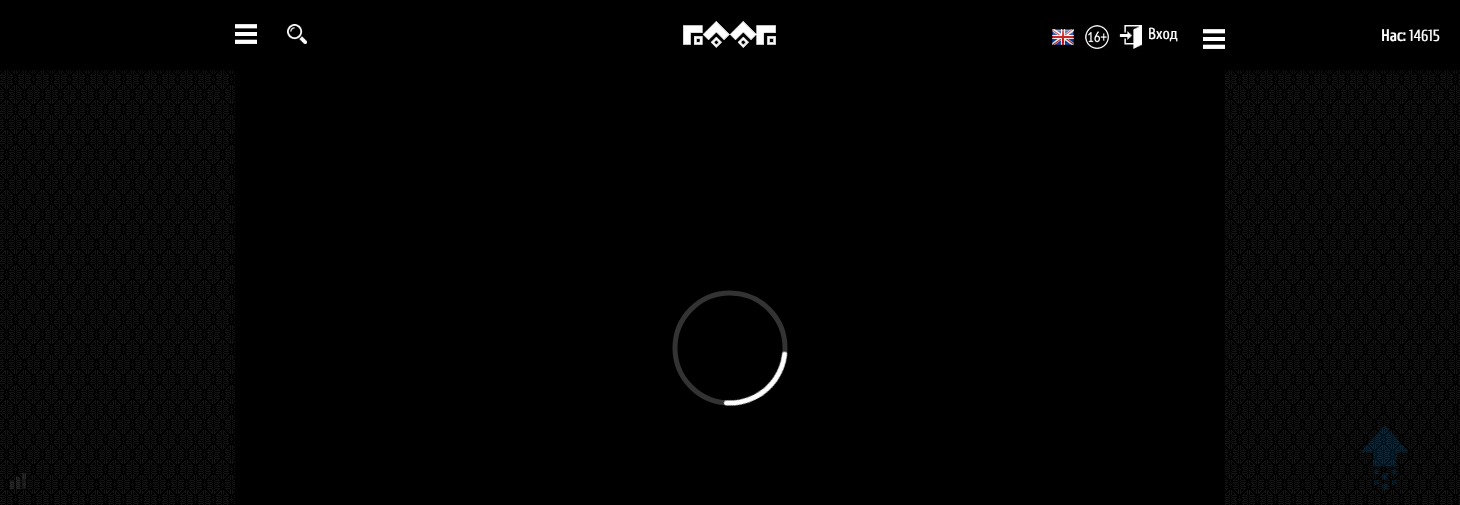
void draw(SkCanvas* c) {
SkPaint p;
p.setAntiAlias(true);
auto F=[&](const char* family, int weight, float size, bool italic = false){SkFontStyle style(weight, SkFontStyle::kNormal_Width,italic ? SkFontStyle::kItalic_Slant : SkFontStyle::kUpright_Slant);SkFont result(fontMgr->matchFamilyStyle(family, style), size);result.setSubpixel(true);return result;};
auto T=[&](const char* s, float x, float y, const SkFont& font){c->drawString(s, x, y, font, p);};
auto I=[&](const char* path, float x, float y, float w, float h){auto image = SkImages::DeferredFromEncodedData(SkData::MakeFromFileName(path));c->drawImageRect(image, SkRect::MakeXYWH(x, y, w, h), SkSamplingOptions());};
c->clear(0xff000000);
I("1.png",235,24,22,20);
I("2.png",287,24,20,20);
I("3.png",683,21,93,27);
I("4.png",1052,29,22,16);
I("5.png",1085,25,24,24);
I("6.png",1119,25,24,24);
auto f1 = F("Cuprum",400,16);
p.setColor(0xffffffff);
T("Вход",1148,39,f1);
I("1.png",1203,29,22,20);
auto f2 = F("Cuprum",700,16);
T("Нас:",1381,41,f2);
T("14615",1409,41,f1);
I("8.png",0,70,1460,435);
I("9.png",235,70,990,435);
I("7.png",0,70,1460,4);
I("10.png",10,473,16,16);
I("11.png",1361,425,47,65);
}
